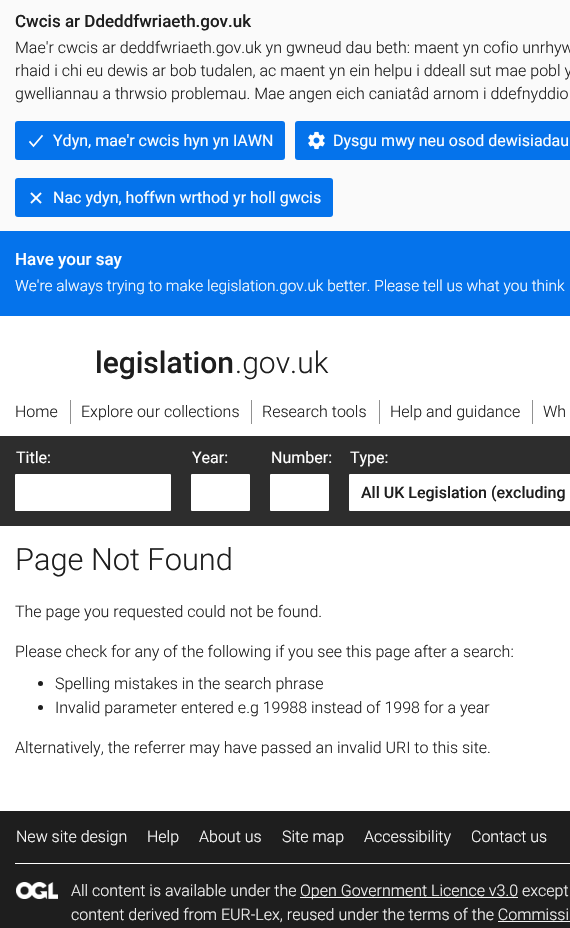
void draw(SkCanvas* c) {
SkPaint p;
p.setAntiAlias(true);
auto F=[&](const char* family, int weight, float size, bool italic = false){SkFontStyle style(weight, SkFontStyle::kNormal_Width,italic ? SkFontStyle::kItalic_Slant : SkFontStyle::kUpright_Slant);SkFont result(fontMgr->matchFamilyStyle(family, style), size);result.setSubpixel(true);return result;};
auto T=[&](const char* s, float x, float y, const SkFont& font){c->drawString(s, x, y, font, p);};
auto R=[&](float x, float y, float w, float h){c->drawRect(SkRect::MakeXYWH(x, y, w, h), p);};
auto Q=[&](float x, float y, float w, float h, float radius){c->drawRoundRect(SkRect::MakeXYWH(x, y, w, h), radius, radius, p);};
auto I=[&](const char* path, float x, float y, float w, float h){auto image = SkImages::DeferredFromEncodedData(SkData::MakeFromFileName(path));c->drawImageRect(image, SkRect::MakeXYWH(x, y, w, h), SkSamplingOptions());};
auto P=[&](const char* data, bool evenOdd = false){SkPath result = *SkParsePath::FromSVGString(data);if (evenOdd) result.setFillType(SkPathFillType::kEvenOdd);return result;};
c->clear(0xffffffff);
p.setColor(0xfffafafa);
R(0,0,570,231);
auto f1 = F("Roboto",500,17);
p.setColor(0xff1e1e1e);
T("Cwcis ar Ddeddfwriaeth.gov.uk",15,27,f1);
auto f2 = F("Roboto",300,16);
T("Mae'r cwcis ar deddfwriaeth.gov.uk yn gwneud dau beth: maent yn cofio unrhyw",15,53,f2);
T("rhaid i chi eu dewis ar bob tudalen, ac maent yn ein helpu i ddeall sut mae pobl y",15,76,f2);
T("gwelliannau a thrwsio problemau. Mae angen eich caniatâd arnom i ddefnyddio",15,99,f2);
p.setColor(0xff0573eb);
Q(15,121,270,39,3);
p.setStroke(true);
p.setStrokeWidth(1.7);
p.setStrokeCap(SkPaint::kSquare_Cap);
p.setColor(0xffffffff);
c->drawPath(P("M42 136l-8.5 10l-3.5-4"),p);
auto f3 = F("Roboto",400,16);
p.setStroke(false);
T("Ydyn, mae'r cwcis hyn yn IAWN",53,146,f3);
p.setColor(0xff0573eb);
Q(295,121,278,39,3);
I("1.png",308,131,17,19);
p.setColor(0xffffffff);
T("Dysgu mwy neu osod dewisiadau",333,146,f3);
p.setColor(0xff0573eb);
Q(15,178,318,39,3);
I("2.png",30,192,12,12);
p.setColor(0xffffffff);
T("Nac ydyn, hoffwn wrthod yr holl gwcis",53,203,f3);
p.setColor(0xff0573eb);
R(0,231,570,85);
p.setColor(0xffffffff);
T("Have your say",15,265,f1);
auto f4 = F("Roboto",300,15.4);
T("We're always trying to make legislation.gov.uk better. Please tell us what you think",15,291,f4);
auto f5 = F("Roboto",500,30);
p.setColor(0xff1e1e1e);
T("legislation",95,373,f5);
auto f6 = F("Roboto",300,30);
T(".gov.uk",235,373,f6);
p.setColor(0xff2d2d2d);
R(0,436,570,90);
p.setColor(0xff1e1e1e);
T("Home",15,417,f2);
p.setColor(0xff919191);
R(70,400,1,24);
p.setColor(0xff1e1e1e);
T("Explore our collections",81,417,f2);
p.setColor(0xff919191);
R(251,400,1,24);
p.setColor(0xff1e1e1e);
T("Research tools",262,417,f2);
p.setColor(0xff919191);
R(379,400,1,24);
p.setColor(0xff1e1e1e);
T("Help and guidance",390,417,f2);
p.setColor(0xff919191);
R(532,400,1,24);
p.setColor(0xff1e1e1e);
T("Wh",543,417,f2);
p.setColor(0xffffffff);
T("Title:",16,463,f3);
Q(15,474,156,37,1);
T("Year:",192,463,f3);
Q(191,474,59,37,1);
T("Number:",271,463,f3);
Q(270,474,59,37,1);
T("Type:",350,463,f3);
Q(349,474,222,37,1);
auto f7 = F("Roboto",500,16);
p.setColor(0xff1e1e1e);
T("All UK Legislation (excluding",361,498,f7);
auto f8 = F("Roboto",300,30.75);
T("Page Not Found",15,570,f8);
T("The page you requested could not be found.",15,617,f2);
T("Please check for any of the following if you see this page after a search:",15,657,f2);
c->drawCircle(40.5,683.5,2.5,p);
T("Spelling mistakes in the search phrase",55,689,f2);
c->drawCircle(40.5,707.5,2.5,p);
T("Invalid parameter entered e.g 19988 instead of 1998 for a year",55,713,f2);
T("Alternatively, the referrer may have passed an invalid URI to this site.",15,753,f2);
R(0,811,570,117);
p.setColor(0xffffffff);
T("New site design",16,842,f2);
T("Help",147,842,f2);
T("About us",199,842,f2);
T("Site map",282,842,f2);
T("Accessibility",364,842,f2);
T("Contact us",471,842,f2);
R(15,863,555,1);
I("3.png",16,882,42,17);
p.setColor(0xfff5f5f5);
T("All content is available under the",71,896,f2);
R(300,897,218,1);
T("Open Government Licence v3.0 except",300,896,f2);
T("content derived from EUR-Lex, reused under the terms of the Commissi",71,920,f2);
R(498,921,72,1);
}
